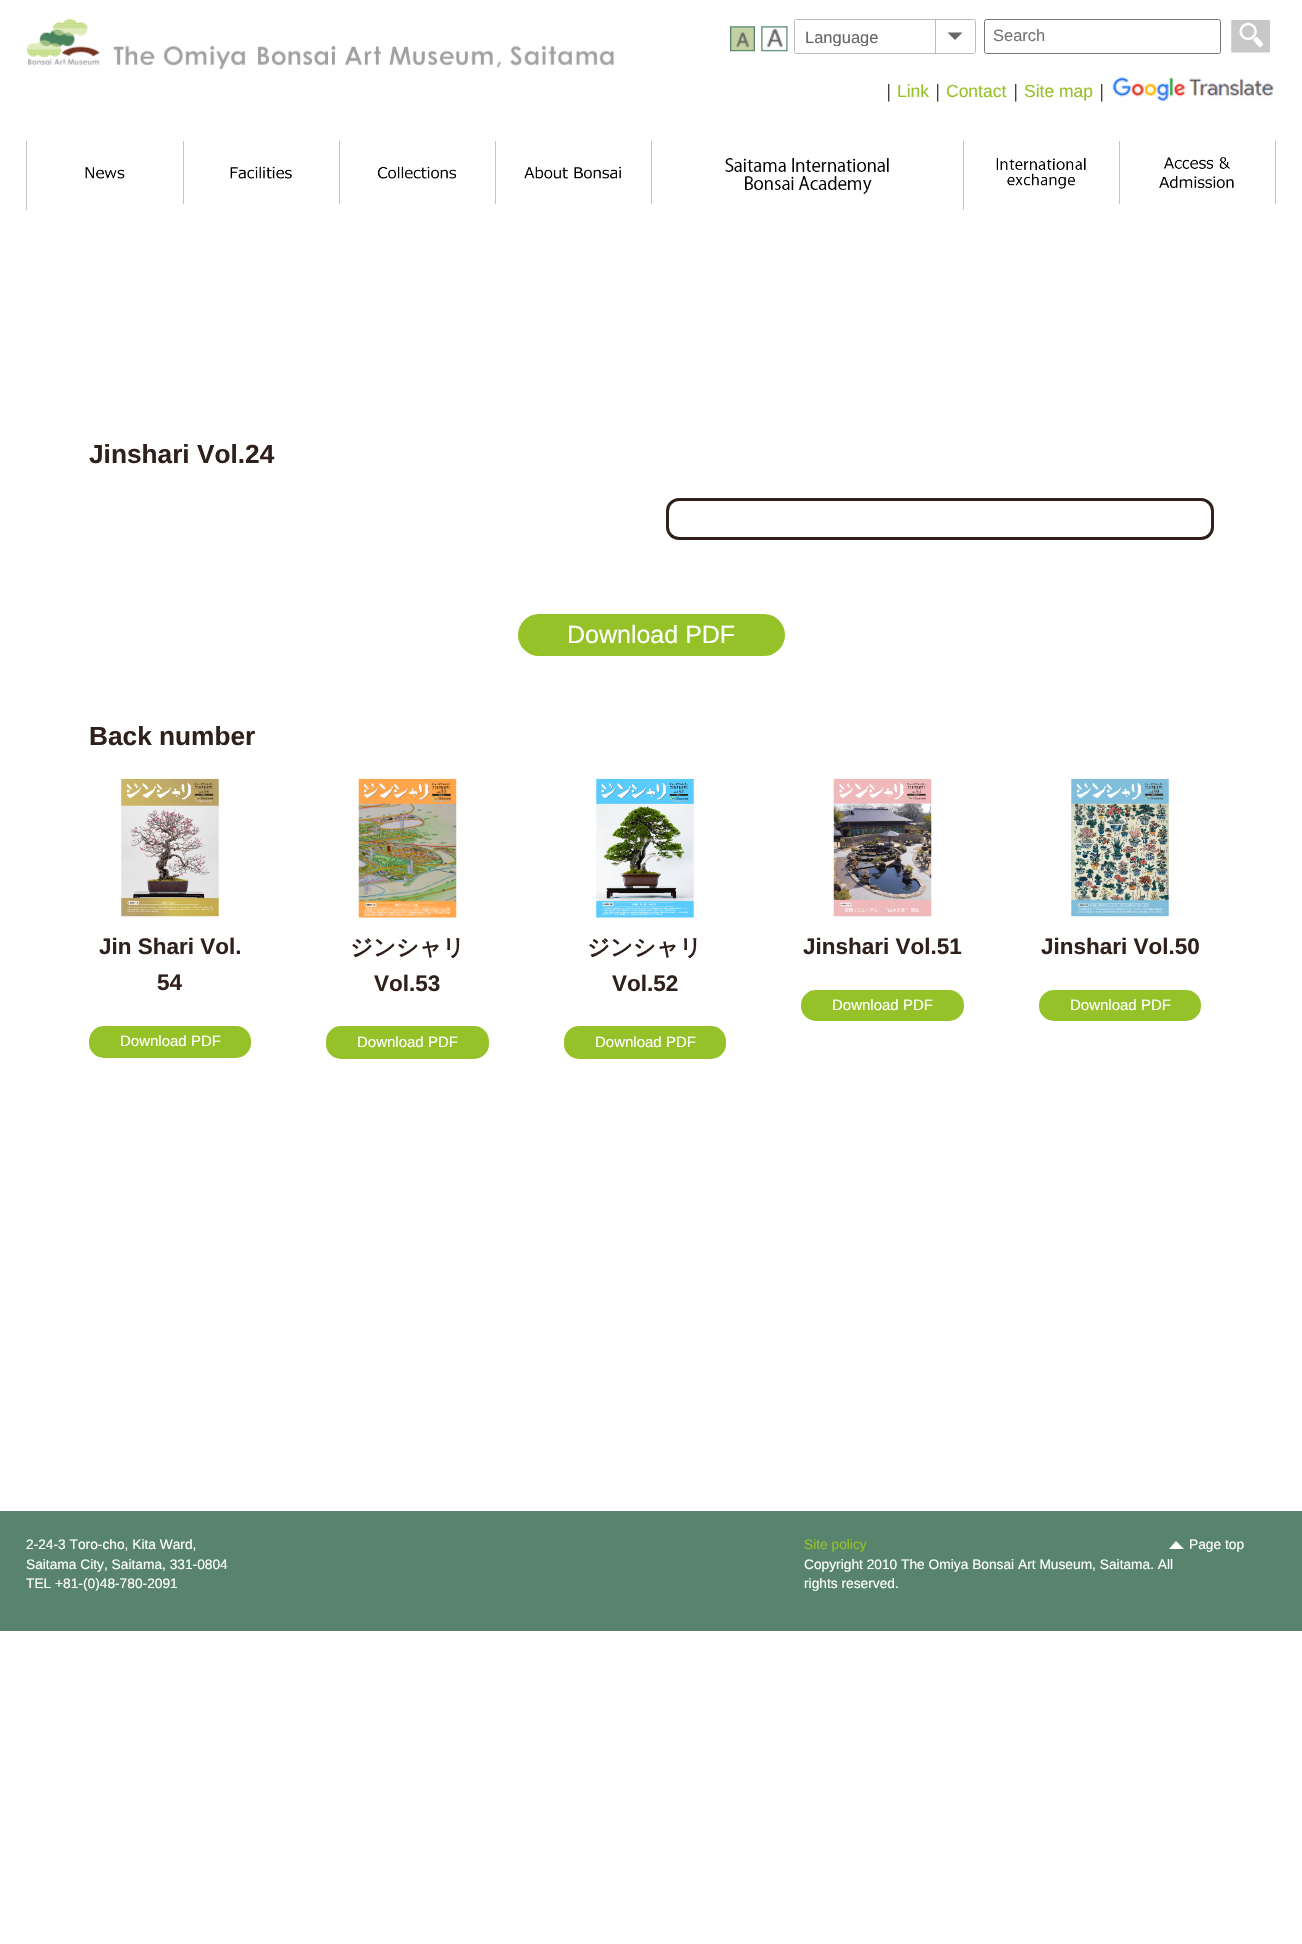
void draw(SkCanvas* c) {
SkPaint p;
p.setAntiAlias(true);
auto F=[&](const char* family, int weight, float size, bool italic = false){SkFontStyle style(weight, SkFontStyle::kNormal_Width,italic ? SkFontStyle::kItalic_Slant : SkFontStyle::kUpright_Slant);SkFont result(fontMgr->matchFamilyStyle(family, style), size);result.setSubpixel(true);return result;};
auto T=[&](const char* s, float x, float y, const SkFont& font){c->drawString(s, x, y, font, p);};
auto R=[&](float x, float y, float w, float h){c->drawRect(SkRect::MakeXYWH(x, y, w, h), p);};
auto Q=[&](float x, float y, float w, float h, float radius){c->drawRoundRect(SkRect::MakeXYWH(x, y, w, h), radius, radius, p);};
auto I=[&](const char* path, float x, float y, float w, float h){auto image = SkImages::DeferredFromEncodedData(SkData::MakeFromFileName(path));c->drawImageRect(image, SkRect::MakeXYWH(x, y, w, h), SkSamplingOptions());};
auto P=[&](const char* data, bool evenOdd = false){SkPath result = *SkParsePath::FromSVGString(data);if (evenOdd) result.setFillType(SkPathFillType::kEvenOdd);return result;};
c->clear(0xffffffff);
I("1.png",26,18,588,51);
I("2.png",730,26,25,26);
I("3.png",761,26,27,26);
p.setStroke(true);
p.setStrokeWidth(1);
p.setColor(0xffbbbbbb);
c->drawRoundRect(SkRect::MakeXYWH(794.5,19.5,181,34),2,2,p);
c->save();
c->clipRect(SkRect::MakeXYWH(805,28,130,18));
auto f1 = F("Liberation Sans",400,16.5);
p.setStroke(false);
p.setColor(0xff666666);
T("Language",805,43,f1);
c->restore();
p.setColor(0xffbbbbbb);
R(935,20,1,33);
p.setColor(0xff666666);
c->drawPath(P("M947.5 32.5h15l-7.5 7.5z"),p);
p.setStroke(true);
p.setColor(0xff767676);
c->drawRoundRect(SkRect::MakeXYWH(984.5,19.5,236,34),2,2,p);
p.setStroke(false);
p.setColor(0xff757575);
T("Search",993,41,f1);
I("4.png",1231,20,39,33);
auto f2 = F("WenQuanYi Zen Hei",500,17.5);
p.setColor(0xff2f201b);
T("｜",880,97,f2);
auto f3 = F("Liberation Sans",400,17.5);
p.setColor(0xff95c228);
T("Link",897,97,f3);
p.setColor(0xff2f201b);
T("｜",929,97,f2);
p.setColor(0xff95c228);
T("Contact",946,97,f3);
p.setColor(0xff2f201b);
T("｜",1007,97,f2);
p.setColor(0xff95c228);
T("Site map",1024,97,f3);
p.setColor(0xff2f201b);
T("｜",1093,97,f2);
I("5.png",1112,77,162,25);
p.setColor(0xffc4c5c6);
R(26,141,1,69);
R(183,141,1,63);
I("6.png",85,167,40,12);
R(339,141,1,63);
I("7.png",230,166,62,13);
R(495,141,1,63);
I("8.png",377,166,79,13);
R(651,141,1,63);
I("9.png",524,166,97,13);
R(963,141,1,69);
I("10.png",725,158,164,37);
R(1119,141,1,63);
I("11.png",996,158,90,31);
R(1275,141,1,63);
I("12.png",1159,157,75,31);
auto f4 = F("Liberation Sans",700,26.25);
p.setColor(0xff2f201b);
T("Jinshari Vol.24",89,463,f4);
p.setStroke(true);
p.setStrokeWidth(3);
c->drawRoundRect(SkRect::MakeXYWH(667.5,499.5,545,39),11.5,11.5,p);
p.setStroke(false);
p.setColor(0xff95c228);
Q(518,614,267,42,21);
auto f5 = F("Liberation Sans",400,25);
p.setColor(0xffffffff);
T("Download PDF",567,643,f5);
p.setColor(0xff2f201b);
T("Back number",89,745,f4);
I("13.png",121,778,98,139);
auto f6 = F("Liberation Sans",700,22.5);
T("Jin Shari Vol.",99,954,f6);
T("54",157,990,f6);
p.setColor(0xff95c228);
Q(89,1026,162,32,15);
auto f7 = F("Liberation Sans",400,15);
p.setColor(0xffffffff);
T("Download PDF",120,1046,f7);
I("14.png",358,778,99,140);
auto f8 = F("WenQuanYi Zen Hei",700,22.5);
p.setColor(0xff2f201b);
T("ジンシャリ",350,955,f8);
T("Vol.53",374,991,f6);
p.setColor(0xff95c228);
Q(326,1026,163,33,15);
p.setColor(0xffffffff);
T("Download PDF",357,1047,f7);
I("15.png",596,778,98,140);
p.setColor(0xff2f201b);
T("ジンシャリ",587,955,f8);
T("Vol.52",612,991,f6);
p.setColor(0xff95c228);
Q(564,1026,162,33,15);
p.setColor(0xffffffff);
T("Download PDF",595,1047,f7);
I("16.png",833,778,99,139);
p.setColor(0xff2f201b);
T("Jinshari Vol.51",803,954,f6);
p.setColor(0xff95c228);
Q(801,990,163,31,15);
p.setColor(0xffffffff);
T("Download PDF",832,1010,f7);
I("17.png",1071,778,98,139);
p.setColor(0xff2f201b);
T("Jinshari Vol.50",1041,954,f6);
p.setColor(0xff95c228);
Q(1039,990,162,31,15);
p.setColor(0xffffffff);
T("Download PDF",1070,1010,f7);
p.setColor(0xff58846d);
R(0,1511,1302,120);
auto f9 = F("Liberation Sans",400,13.75);
p.setColor(0xffffffff);
T("2-24-3 Toro-cho, Kita Ward,",26,1549,f9);
T("Saitama City, Saitama, 331-0804",26,1569,f9);
T("TEL +81-(0)48-780-2091",26,1588,f9);
p.setColor(0xff95c228);
T("Site policy",804,1549,f9);
p.setColor(0xffffffff);
T("Copyright 2010 The Omiya Bonsai Art Museum, Saitama. All",804,1569,f9);
T("rights reserved.",804,1588,f9);
c->drawPath(P("M1184 1549h-15l7-8z"),p);
T("Page top",1189,1549,f9);
}
